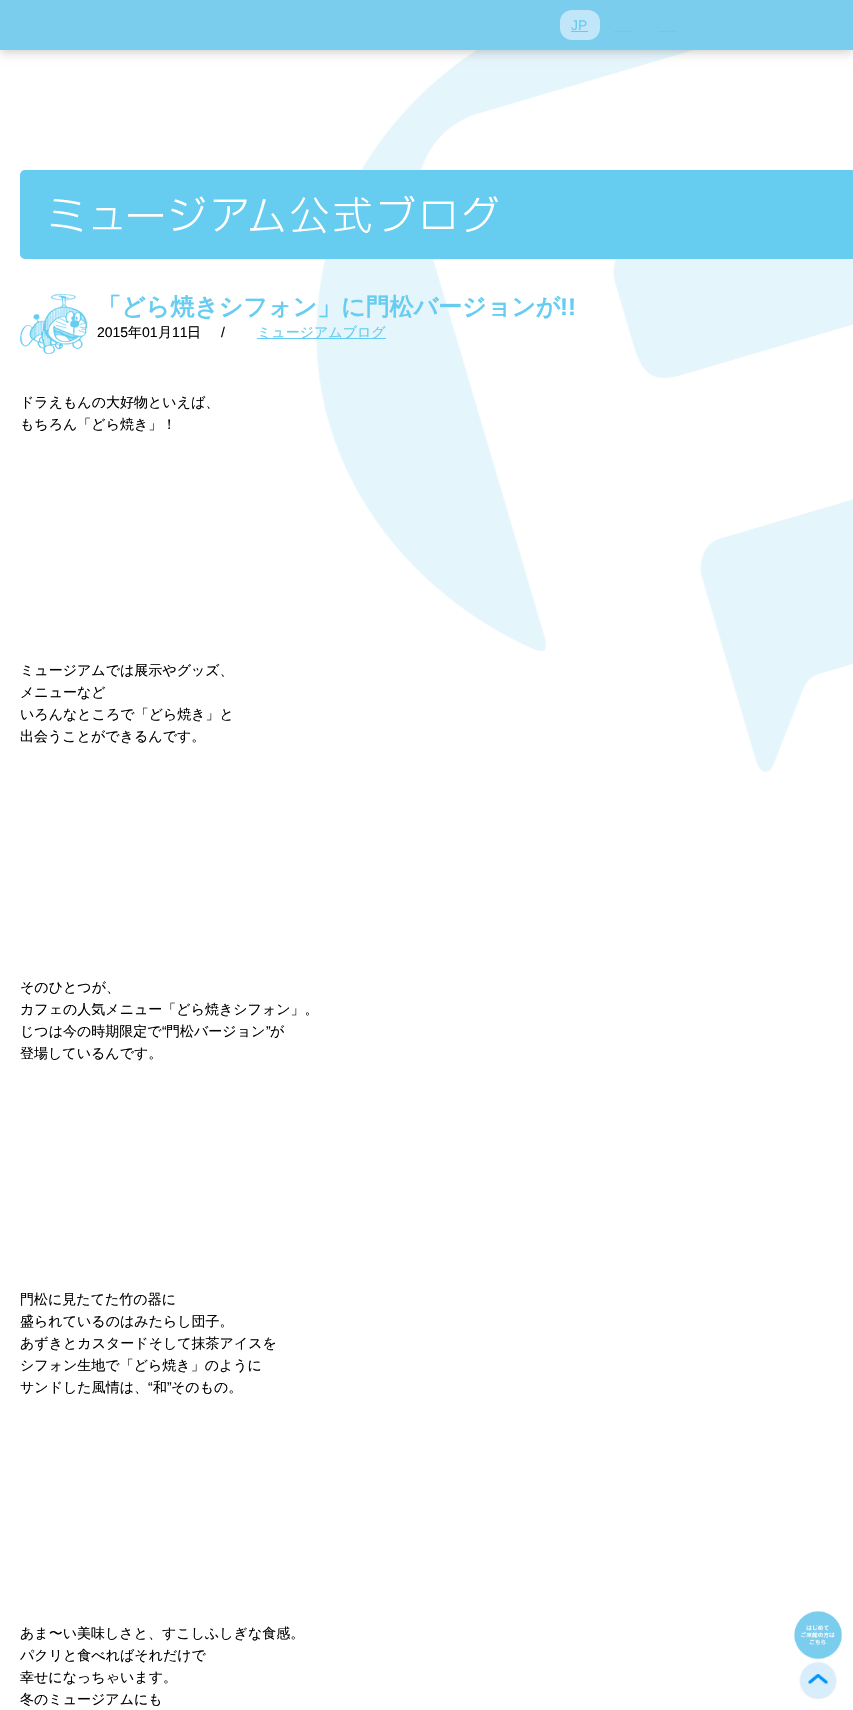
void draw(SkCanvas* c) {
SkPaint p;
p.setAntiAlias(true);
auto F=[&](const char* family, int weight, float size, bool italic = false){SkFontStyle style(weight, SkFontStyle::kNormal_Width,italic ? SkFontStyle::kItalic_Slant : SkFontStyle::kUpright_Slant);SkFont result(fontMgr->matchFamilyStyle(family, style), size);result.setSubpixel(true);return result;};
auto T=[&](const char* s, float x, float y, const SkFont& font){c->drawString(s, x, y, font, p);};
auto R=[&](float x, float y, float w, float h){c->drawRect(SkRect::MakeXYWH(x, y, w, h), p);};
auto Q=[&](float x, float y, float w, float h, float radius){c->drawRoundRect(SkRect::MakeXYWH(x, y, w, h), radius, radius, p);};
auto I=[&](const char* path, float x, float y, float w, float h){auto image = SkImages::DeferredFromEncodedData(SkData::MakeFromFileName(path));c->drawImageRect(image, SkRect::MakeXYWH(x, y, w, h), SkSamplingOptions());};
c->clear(0xffffffff);
I("1.png",316,50,537,722);
p.setColor(0x33000000);
p.setMaskFilter(SkMaskFilter::MakeBlur(kNormal_SkBlurStyle, 5));
c->drawRect(SkRect::MakeXYWH(0,2,853,50),p);
p.setMaskFilter(nullptr);
p.setColor(0xff7bcdee);
R(0,0,853,50);
p.setColor(0xffc1e6f9);
Q(560,10,40,30,12);
auto f1 = F("Liberation Sans",400,14);
p.setColor(0xff66ccf0);
T("JP",571,30,f1);
R(571,31,17,1);
R(614,31,19,1);
R(658,31,19,1);
Q(20,170,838,89,5);
I("2.png",50,195,448,39);
I("3.png",20,294,68,60);
auto f2 = F("WenQuanYi Zen Hei",700,24);
T("「どら焼きシフォン」に門松バージョンが",97,315,f2);
auto f3 = F("Liberation Sans",700,24);
T("!!",560,315,f3);
p.setColor(0xff020202);
T("2015",97,337,f1);
auto f4 = F("WenQuanYi Zen Hei",500,14);
T("年",128,337,f4);
T("01",142,337,f1);
T("月",158,337,f4);
T("11",172,337,f1);
T("日",187,337,f4);
T("/",221,337,f1);
p.setColor(0xff66ccf0);
R(257,338,129,1);
T("ミュージアムブログ",257,337,f4);
p.setColor(0xff020202);
T("ドラえもんの大好物といえば、",20,407,f4);
T("もちろん「どら焼き」！",20,429,f4);
T("ミュージアムでは展示やグッズ、",20,675,f4);
T("メニューなど",20,697,f4);
T("いろんなところで「どら焼き」と",20,719,f4);
T("出会うことができるんです。",20,741,f4);
T("そのひとつが、",20,992,f4);
T("カフェの人気メニュー「どら焼きシフォン」。",20,1014,f4);
T("じつは今の時期限定で",20,1036,f4);
T("“",162,1036,f1);
T("門松バージョン",166,1036,f4);
T("”",266,1036,f1);
T("が",270,1036,f4);
T("登場しているんです。",20,1058,f4);
T("門松に見たてた竹の器に",20,1304,f4);
T("盛られているのはみたらし団子。",20,1326,f4);
T("あずきとカスタードそして抹茶アイスを",20,1348,f4);
T("シフォン生地で「どら焼き」のように",20,1370,f4);
T("サンドした風情は、",20,1392,f4);
T("“",148,1392,f1);
T("和",153,1392,f4);
T("”",167,1392,f1);
T("そのもの。",171,1392,f4);
T("あま〜い美味しさと、すこしふしぎな食感。",20,1638,f4);
T("パクリと食べればそれだけで",20,1660,f4);
T("幸せになっちゃいます。",20,1682,f4);
T("冬のミュージアムにも",20,1704,f4);
I("4.png",794,1611,49,49);
I("5.png",799,1661,38,38);
}
